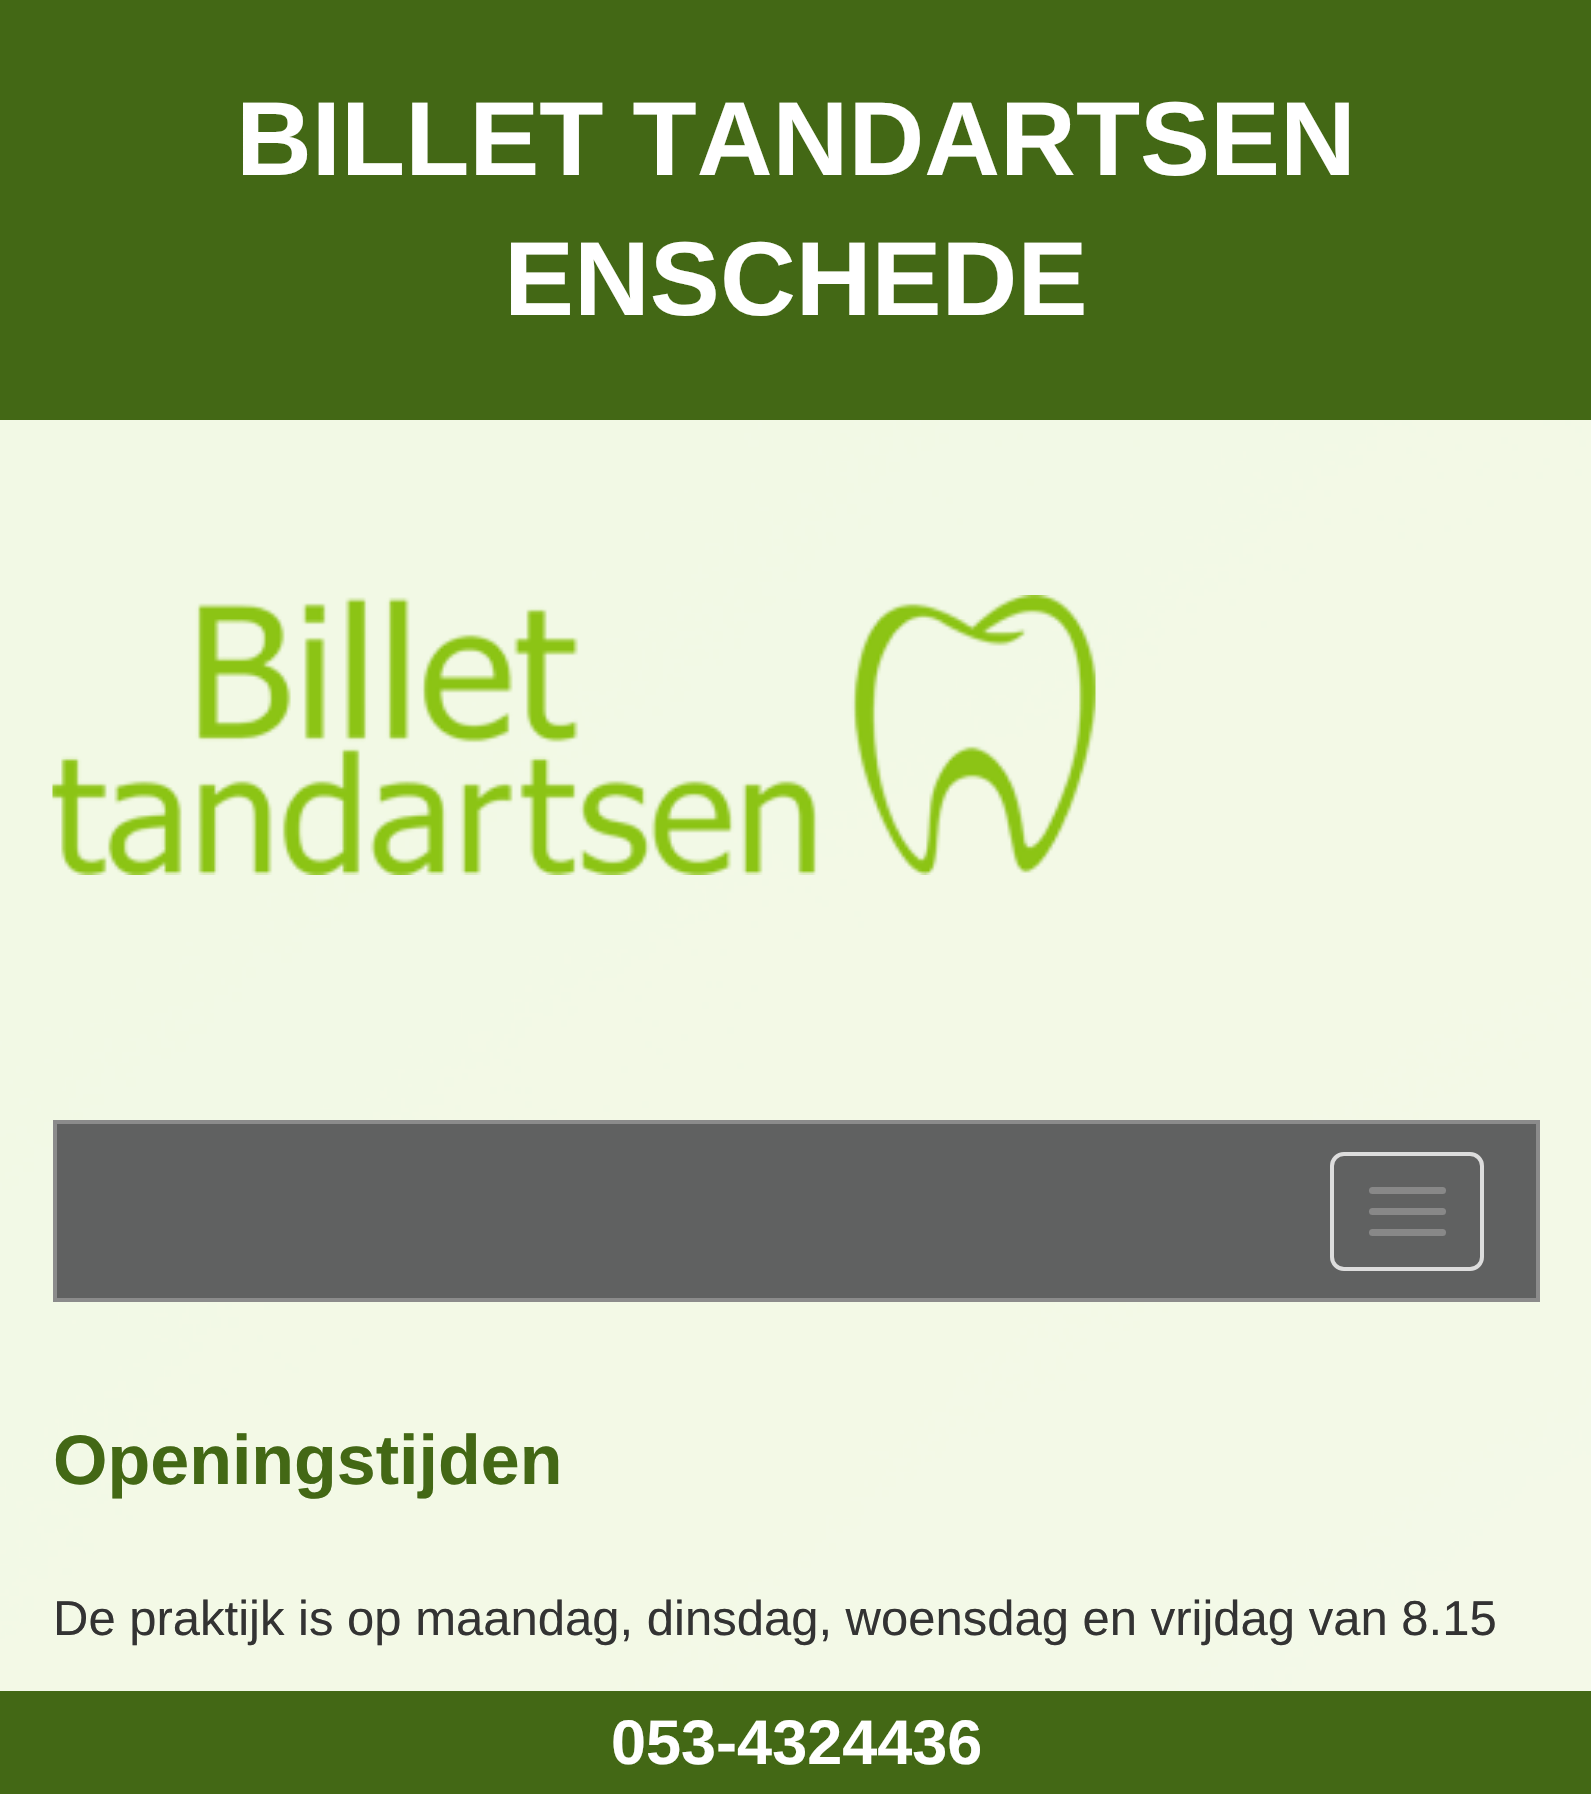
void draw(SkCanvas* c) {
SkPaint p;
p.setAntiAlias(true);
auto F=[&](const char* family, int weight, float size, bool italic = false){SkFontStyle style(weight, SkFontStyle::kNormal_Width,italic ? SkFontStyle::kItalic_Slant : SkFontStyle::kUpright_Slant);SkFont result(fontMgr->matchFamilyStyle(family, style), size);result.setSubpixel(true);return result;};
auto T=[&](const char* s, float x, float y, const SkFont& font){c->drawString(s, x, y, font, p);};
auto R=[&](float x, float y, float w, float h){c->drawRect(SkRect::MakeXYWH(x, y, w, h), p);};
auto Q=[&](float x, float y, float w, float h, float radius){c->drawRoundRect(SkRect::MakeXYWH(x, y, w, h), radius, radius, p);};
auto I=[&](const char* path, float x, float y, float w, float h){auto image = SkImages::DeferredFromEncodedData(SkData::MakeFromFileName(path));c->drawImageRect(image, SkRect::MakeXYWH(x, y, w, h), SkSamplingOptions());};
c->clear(0xffffffff);
I("1.png",0,420,1591,1271);
p.setColor(0xff436815);
R(0,0,1591,420);
auto f1 = F("Liberation Sans",700,105);
p.setColor(0xffffffff);
T("BILLET TANDARTSEN",236,175,f1);
T("ENSCHEDE",504,315,f1);
I("2.png",52,595,1044,280);
p.setColor(0xff606161);
c->drawRect(SkRect::MakeXYWH(55,1122,1483,178),p);
p.setStroke(true);
p.setStrokeWidth(4);
p.setColor(0xff8b8b8b);
c->drawRect(SkRect::MakeXYWH(55,1122,1483,178),p);
p.setColor(0xffdddddd);
c->drawRoundRect(SkRect::MakeXYWH(1332,1154,150,115),12,12,p);
p.setStroke(false);
p.setColor(0xff888888);
Q(1369,1187,77,7,3.5);
Q(1369,1208,77,7,3.5);
Q(1369,1229,77,7,3.5);
auto f2 = F("Liberation Sans",700,70);
p.setColor(0xff436815);
T("Openingstijden",53,1484,f2);
auto f3 = F("Liberation Sans",400,49);
p.setColor(0xff333333);
T("De praktijk is op maandag, dinsdag, woensdag en vrijdag van 8.15",53,1635,f3);
p.setColor(0xff436815);
R(0,1691,1591,103);
auto f4 = F("Liberation Sans",700,63);
p.setColor(0xffffffff);
T("053-4324436",611,1764,f4);
}
